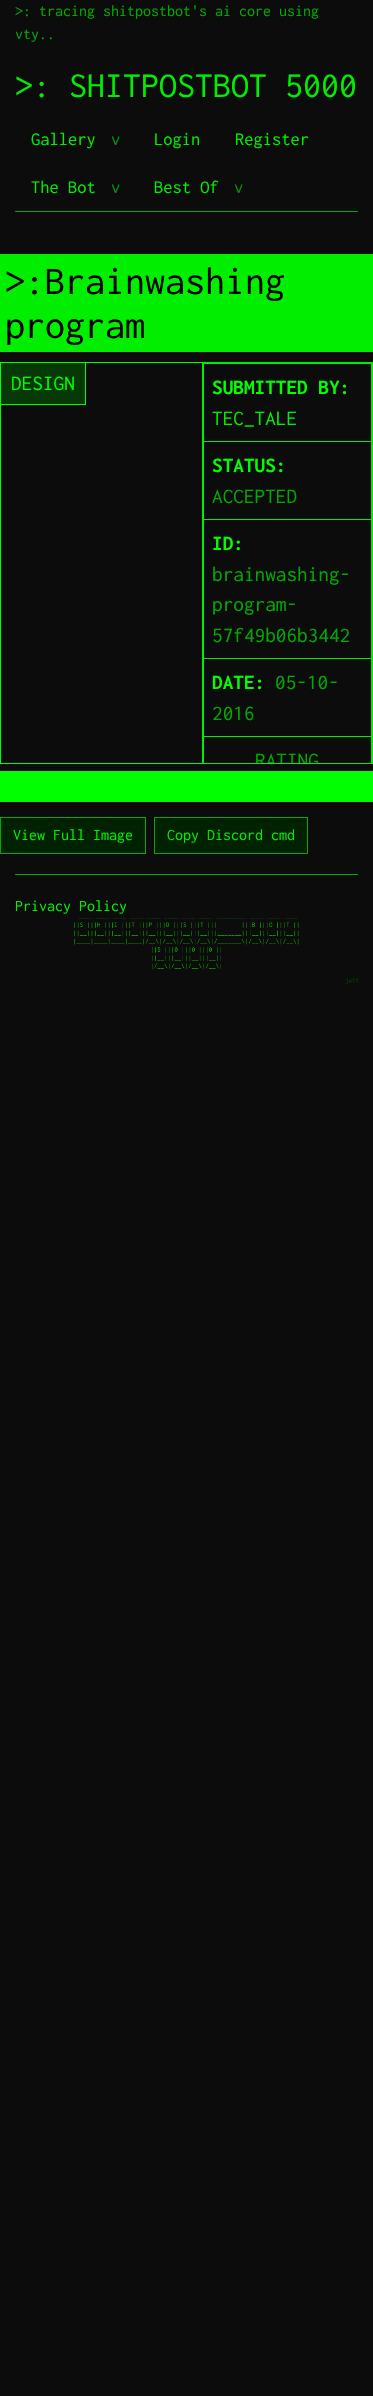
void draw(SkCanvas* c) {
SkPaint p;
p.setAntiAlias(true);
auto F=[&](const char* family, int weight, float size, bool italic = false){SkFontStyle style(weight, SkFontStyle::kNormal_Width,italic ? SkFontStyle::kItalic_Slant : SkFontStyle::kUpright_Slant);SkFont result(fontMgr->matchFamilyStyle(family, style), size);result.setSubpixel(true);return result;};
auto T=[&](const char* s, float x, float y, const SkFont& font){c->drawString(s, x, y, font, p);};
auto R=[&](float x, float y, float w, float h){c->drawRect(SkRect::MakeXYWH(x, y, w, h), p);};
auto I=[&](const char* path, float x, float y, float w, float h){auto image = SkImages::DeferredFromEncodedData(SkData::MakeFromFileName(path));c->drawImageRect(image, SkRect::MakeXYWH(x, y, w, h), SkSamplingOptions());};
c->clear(0xff0c0c0c);
auto f1 = F("Inconsolata",400,16);
p.setColor(0xff01aa01);
T(">: tracing shitpostbot's ai core using",15,16,f1);
T("vty..",15,39,f1);
auto f2 = F("Inconsolata",400,36);
p.setColor(0xff01ee01);
T(">: SHITPOSTBOT 5000",15,97,f2);
p.setColor(0xff01aa01);
R(15,211,343,1);
auto f3 = F("Inconsolata",400,18.5);
p.setColor(0xff01ee01);
T("Gallery",31,145,f3);
p.setColor(0xff019901);
T("v",111,145,f3);
p.setColor(0xff01ee01);
T("Login",154,145,f3);
T("Register",235,145,f3);
T("The Bot",31,193,f3);
p.setColor(0xff019901);
T("v",111,193,f3);
p.setColor(0xff01ee01);
T("Best Of",154,193,f3);
p.setColor(0xff019901);
T("v",234,193,f3);
p.setColor(0xff01ee01);
R(0,254,373,98);
auto f4 = F("Inconsolata",400,40);
p.setColor(0xff010101);
T(">:Brainwashing",5,294,f4);
T("program",5,338,f4);
p.setStroke(true);
p.setStrokeWidth(1);
p.setColor(0xff01ff01);
c->drawRect(SkRect::MakeXYWH(.5,362.5,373,401),p);
p.setStroke(false);
p.setColor(0x80016601);
c->drawRect(SkRect::MakeXYWH(.5,362.5,85,42),p);
p.setStroke(true);
p.setColor(0xff01ff01);
c->drawRect(SkRect::MakeXYWH(.5,362.5,85,42),p);
auto f5 = F("Inconsolata",400,21.25);
p.setStroke(false);
T("DESIGN",11,390,f5);
p.setStroke(true);
p.setColor(0xff01ee01);
c->drawRect(SkRect::MakeXYWH(202.5,362.5,170,401),p);
p.setStroke(false);
R(203,363,169,1);
R(203,441,169,1);
R(203,519,169,1);
R(203,658,169,1);
R(203,736,169,1);
R(371,736,1,27);
R(371,658,1,79);
R(371,519,1,140);
R(371,441,1,79);
R(371,363,1,79);
R(203,736,1,27);
R(203,658,1,79);
R(203,519,1,140);
R(203,441,1,79);
R(203,363,1,79);
auto f6 = F("Inconsolata",700,21.25);
p.setColor(0xff01ff01);
T("SUBMITTED BY:",212,394,f6);
p.setColor(0xff01ee01);
T("TEC_TALE",212,425,f5);
p.setColor(0xff01ff01);
T("STATUS:",212,472,f6);
p.setColor(0xff01aa01);
T("ACCEPTED",212,503,f5);
p.setColor(0xff01ff01);
T("ID:",212,550,f6);
p.setColor(0xff01aa01);
T("brainwashing-",212,581,f5);
T("program-",212,611,f5);
T("57f49b06b3442",212,642,f5);
p.setColor(0xff01ff01);
T("DATE:",212,689,f6);
p.setColor(0xff01aa01);
T("05-10-",275,689,f5);
T("2016",212,720,f5);
c->save();
c->clipRect(SkRect::MakeXYWH(203,363,169,400));
T("RATING",255,767,f5);
c->restore();
p.setColor(0xff01ff01);
R(0,771,373,31);
p.setColor(0xff002200);
c->drawRect(SkRect::MakeXYWH(.5,817.5,145,36),p);
p.setStroke(true);
p.setColor(0xff01aa01);
c->drawRect(SkRect::MakeXYWH(.5,817.5,145,36),p);
p.setStroke(false);
p.setColor(0xff01ee01);
T("View Full Image",13,840,f1);
p.setColor(0xff002200);
c->drawRect(SkRect::MakeXYWH(154.5,817.5,153,36),p);
p.setStroke(true);
p.setColor(0xff01aa01);
c->drawRect(SkRect::MakeXYWH(154.5,817.5,153,36),p);
p.setStroke(false);
p.setColor(0xff01ee01);
T("Copy Discord cmd",167,840,f1);
p.setColor(0xff01aa01);
R(15,874,343,1);
p.setColor(0xff01ee01);
T("Privacy Policy",15,911,f1);
I("1.png",74,918,225,52);
auto f7 = F("Inconsolata",400,7);
p.setColor(0xff014001);
T("jeff",345,983,f7);
}
